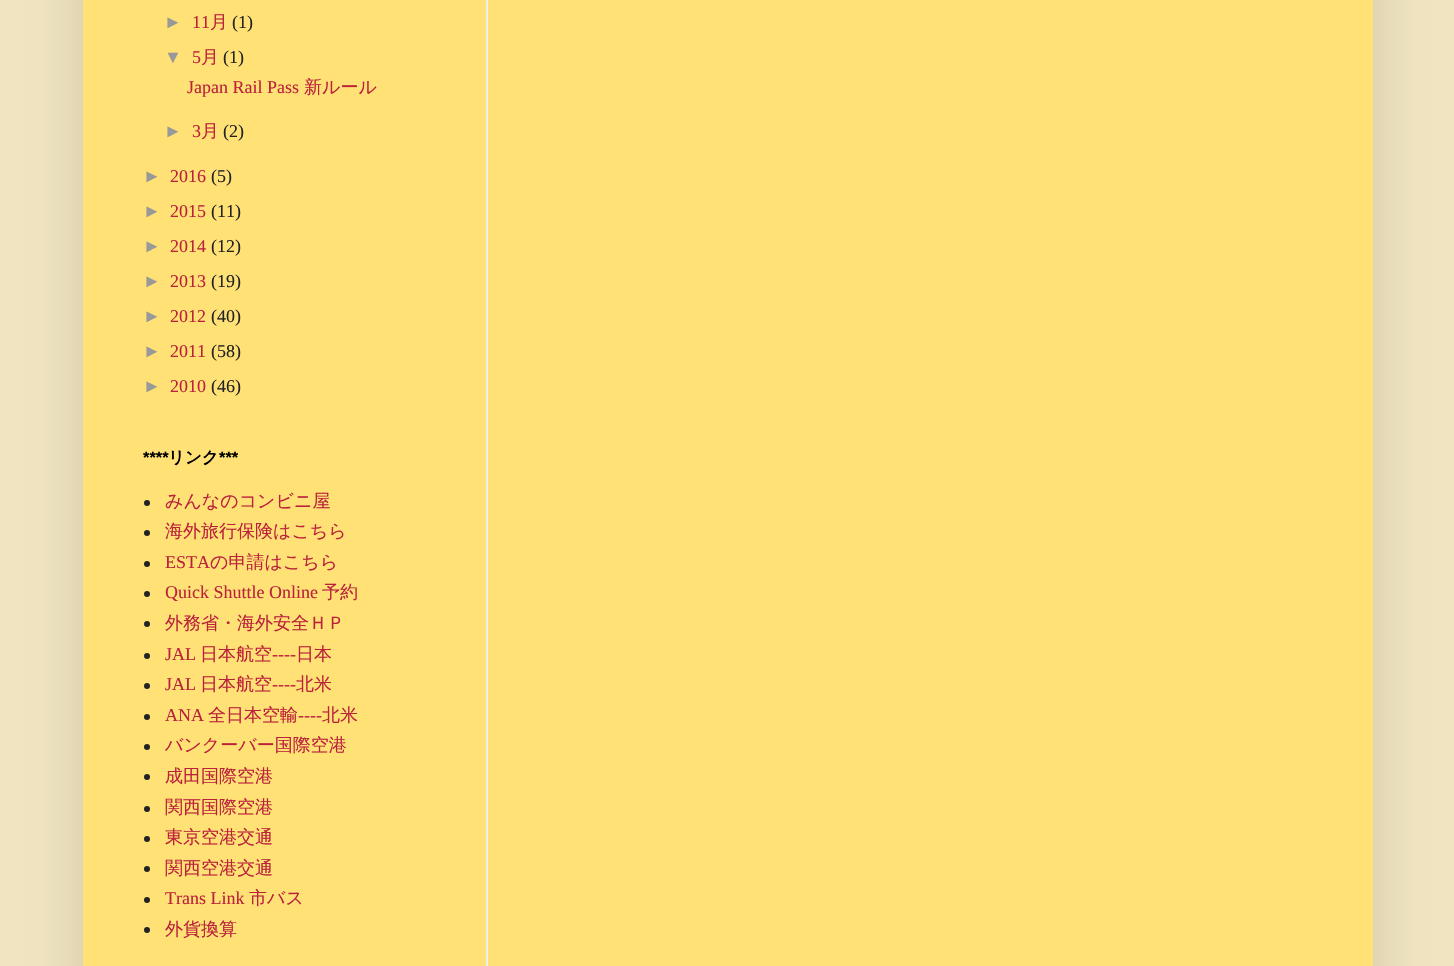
void draw(SkCanvas* c) {
SkPaint p;
p.setAntiAlias(true);
auto F=[&](const char* family, int weight, float size, bool italic = false){SkFontStyle style(weight, SkFontStyle::kNormal_Width,italic ? SkFontStyle::kItalic_Slant : SkFontStyle::kUpright_Slant);SkFont result(fontMgr->matchFamilyStyle(family, style), size);result.setSubpixel(true);return result;};
auto T=[&](const char* s, float x, float y, const SkFont& font){c->drawString(s, x, y, font, p);};
auto R=[&](float x, float y, float w, float h){c->drawRect(SkRect::MakeXYWH(x, y, w, h), p);};
c->clear(0xfff2e6c2);
p.setColor(0x26000000);
p.setMaskFilter(SkMaskFilter::MakeBlur(kNormal_SkBlurStyle, 30));
c->drawRect(SkRect::MakeXYWH(83,-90,1290,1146),p);
p.setMaskFilter(nullptr);
p.setColor(0xffffe175);
R(83,0,1290,966);
auto f1 = F("Liberation Sans",400,18);
p.setColor(0xff999999);
T("►",164,28,f1);
auto f2 = F("Liberation Serif",400,18);
p.setColor(0xffbb213b);
T("11",192,28,f2);
auto f3 = F("WenQuanYi Zen Hei",500,18);
T("月",210,28,f3);
p.setColor(0xff222222);
T("(1)",232,28,f2);
p.setColor(0xff999999);
T("▼",164,63,f1);
p.setColor(0xffbb213b);
T("5",192,63,f2);
T("月",201,63,f3);
p.setColor(0xff222222);
T("(1)",223,63,f2);
p.setColor(0xffbb213b);
T("Japan Rail Pass",187,93,f2);
T("新ルール",304,93,f3);
p.setColor(0xff999999);
T("►",164,137,f1);
p.setColor(0xffbb213b);
T("3",192,137,f2);
T("月",201,137,f3);
p.setColor(0xff222222);
T("(2)",223,137,f2);
p.setColor(0xff999999);
T("►",143,182,f1);
p.setColor(0xffbb213b);
T("2016",170,182,f2);
p.setColor(0xff222222);
T("(5)",211,182,f2);
p.setColor(0xff999999);
T("►",143,217,f1);
p.setColor(0xffbb213b);
T("2015",170,217,f2);
p.setColor(0xff222222);
T("(11)",211,217,f2);
p.setColor(0xff999999);
T("►",143,252,f1);
p.setColor(0xffbb213b);
T("2014",170,252,f2);
p.setColor(0xff222222);
T("(12)",211,252,f2);
p.setColor(0xff999999);
T("►",143,287,f1);
p.setColor(0xffbb213b);
T("2013",170,287,f2);
p.setColor(0xff222222);
T("(19)",211,287,f2);
p.setColor(0xff999999);
T("►",143,322,f1);
p.setColor(0xffbb213b);
T("2012",170,322,f2);
p.setColor(0xff222222);
T("(40)",211,322,f2);
p.setColor(0xff999999);
T("►",143,357,f1);
p.setColor(0xffbb213b);
T("2011",170,357,f2);
p.setColor(0xff222222);
T("(58)",211,357,f2);
p.setColor(0xff999999);
T("►",143,392,f1);
p.setColor(0xffbb213b);
T("2010",170,392,f2);
p.setColor(0xff222222);
T("(46)",211,392,f2);
auto f4 = F("Liberation Sans",700,16.5);
p.setColor(0xff000000);
T("****",143,463,f4);
auto f5 = F("WenQuanYi Zen Hei",700,16.5);
T("リンク",168,463,f5);
T("***",219,463,f4);
p.setColor(0xff222222);
c->drawCircle(147,503,3,p);
p.setColor(0xffbb213b);
T("みんなのコンビニ屋",165,507,f3);
p.setColor(0xff222222);
c->drawCircle(147,533,3,p);
p.setColor(0xffbb213b);
T("海外旅行保険はこちら",165,537,f3);
p.setColor(0xff222222);
c->drawCircle(147,564,3,p);
p.setColor(0xffbb213b);
T("ESTA",165,568,f2);
T("の申請はこちら",210,568,f3);
p.setColor(0xff222222);
c->drawCircle(147,594,3,p);
p.setColor(0xffbb213b);
T("Quick Shuttle Online",165,598,f2);
T("予約",322,598,f3);
p.setColor(0xff222222);
c->drawCircle(147,624,3,p);
p.setColor(0xffbb213b);
T("外務省・海外安全ＨＰ",165,629,f3);
p.setColor(0xff222222);
c->drawCircle(147,656,3,p);
p.setColor(0xffbb213b);
T("JAL",165,660,f2);
T("日本航空",200,660,f3);
T("----",272,660,f2);
T("日本",296,660,f3);
p.setColor(0xff222222);
c->drawCircle(147,686,3,p);
p.setColor(0xffbb213b);
T("JAL",165,690,f2);
T("日本航空",200,690,f3);
T("----",272,690,f2);
T("北米",296,690,f3);
p.setColor(0xff222222);
c->drawCircle(147,717,3,p);
p.setColor(0xffbb213b);
T("ANA",165,721,f2);
T("全日本空輸",208,721,f3);
T("----",298,721,f2);
T("北米",322,721,f3);
p.setColor(0xff222222);
c->drawCircle(147,747,3,p);
p.setColor(0xffbb213b);
T("バンクーバー国際空港",165,751,f3);
p.setColor(0xff222222);
c->drawCircle(147,777,3,p);
p.setColor(0xffbb213b);
T("成田国際空港",165,782,f3);
p.setColor(0xff222222);
c->drawCircle(147,809,3,p);
p.setColor(0xffbb213b);
T("関西国際空港",165,813,f3);
p.setColor(0xff222222);
c->drawCircle(147,839,3,p);
p.setColor(0xffbb213b);
T("東京空港交通",165,843,f3);
p.setColor(0xff222222);
c->drawCircle(147,869,3,p);
p.setColor(0xffbb213b);
T("関西空港交通",165,874,f3);
p.setColor(0xff222222);
c->drawCircle(147,900,3,p);
p.setColor(0xffbb213b);
T("Trans Link",165,904,f2);
T("市バス",249,904,f3);
p.setColor(0xff222222);
c->drawCircle(147,930,3,p);
p.setColor(0xffbb213b);
T("外貨換算",165,935,f3);
p.setColor(0xffeeeeee);
R(486,0,2,966);
}
